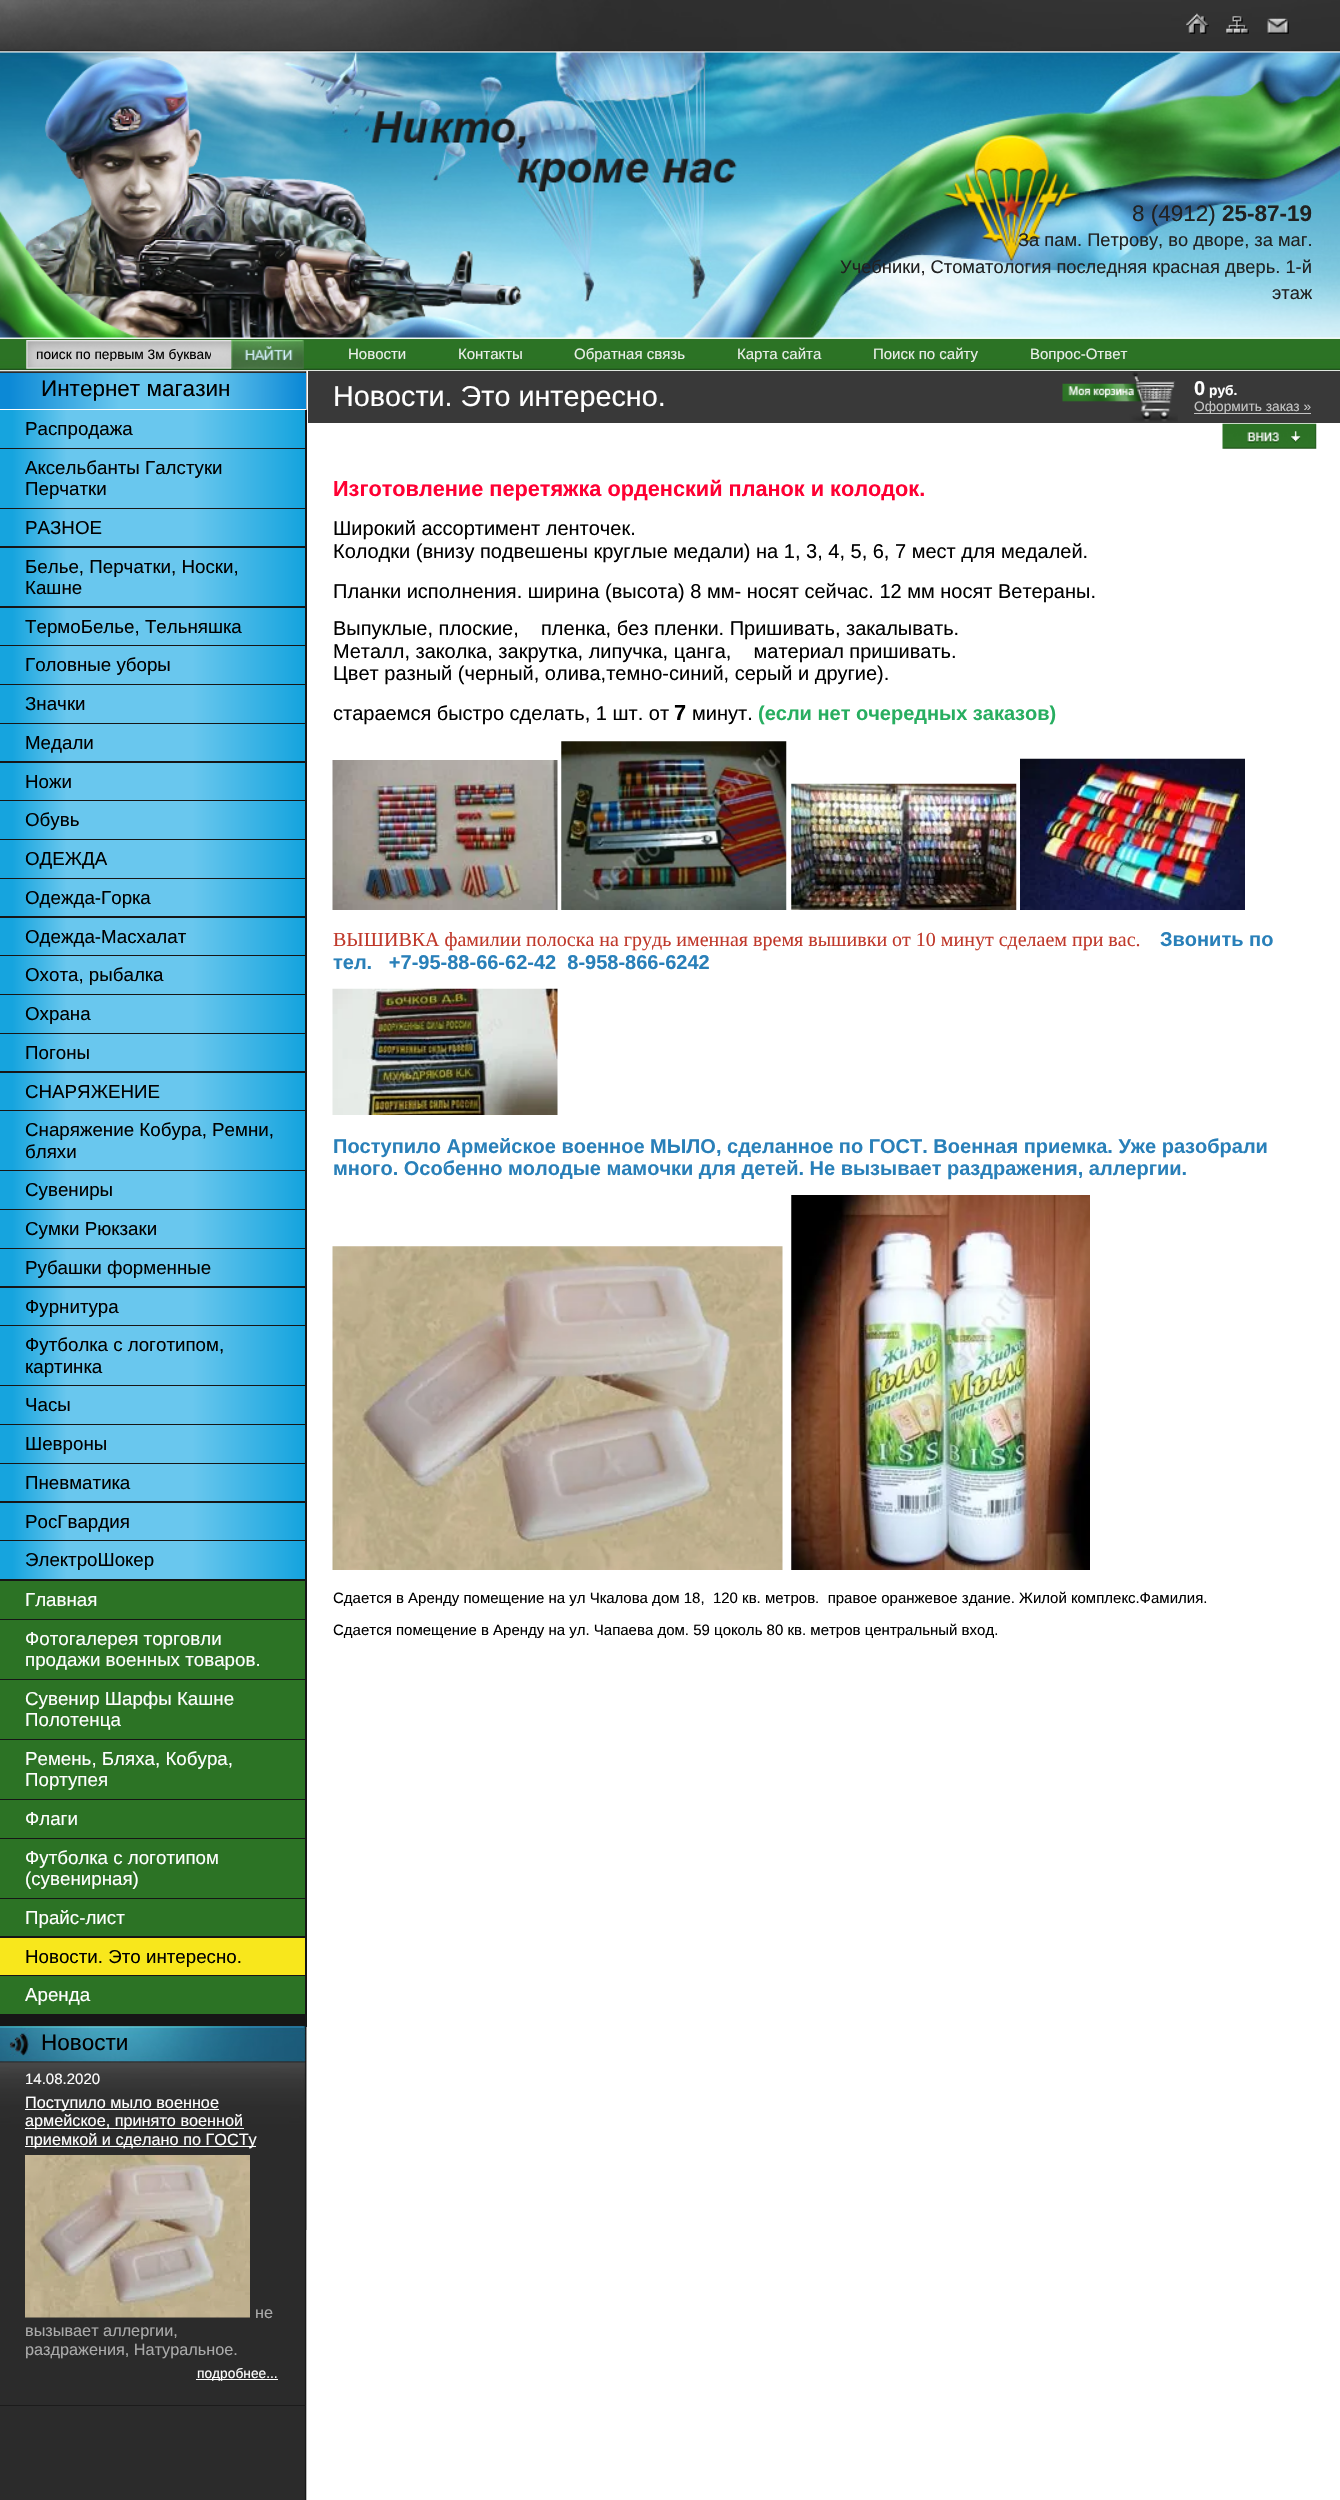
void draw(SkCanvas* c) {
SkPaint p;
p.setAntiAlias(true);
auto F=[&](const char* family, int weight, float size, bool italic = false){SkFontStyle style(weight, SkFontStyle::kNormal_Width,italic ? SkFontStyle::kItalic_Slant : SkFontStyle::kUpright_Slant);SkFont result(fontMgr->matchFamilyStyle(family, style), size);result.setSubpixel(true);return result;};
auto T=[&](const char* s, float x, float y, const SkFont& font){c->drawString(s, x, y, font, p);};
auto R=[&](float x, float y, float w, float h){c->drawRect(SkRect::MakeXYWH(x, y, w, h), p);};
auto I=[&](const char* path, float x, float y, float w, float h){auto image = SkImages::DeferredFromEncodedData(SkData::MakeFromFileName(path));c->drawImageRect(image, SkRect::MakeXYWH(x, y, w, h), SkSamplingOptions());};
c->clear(0xffffffff);
I("1.png",0,371,307,2129);
I("2.png",0,338,1340,34);
I("3.png",0,0,1340,339);
I("4.png",1186,13,103,21);
I("5.png",0,56,737,282);
auto f1 = F("Liberation Sans",400,22.5);
p.setColor(0xff212121);
T("8 (4912)",1132,221,f1);
auto f2 = F("Liberation Sans",700,22.5);
T("25-87-19",1222,221,f2);
auto f3 = F("Liberation Sans",400,18.3);
T("За пам. Петрову, во дворе, за маг.",1018,246,f3);
T("Учебники, Стоматология последняя красная дверь. 1-й",840,273,f3);
T("этаж",1272,299,f3);
I("6.png",26,340,278,29);
c->save();
c->clipRect(SkRect::MakeXYWH(36,346,175,15));
auto f4 = F("Liberation Sans",400,13.75);
p.setColor(0xff000000);
T("поиск по первым 3м буквам",36,359,f4);
c->restore();
auto f5 = F("Liberation Sans",400,15);
p.setColor(0xffeaefe9);
T("Новости",348,359,f5);
T("Контакты",458,359,f5);
T("Обратная связь",574,359,f5);
T("Карта сайта",737,359,f5);
T("Поиск по сайту",873,359,f5);
T("Вопрос-Ответ",1030,359,f5);
p.setColor(0xff393939);
R(308,371,1032,52);
I("7.png",1062,372,116,50);
auto f6 = F("Liberation Sans",700,20);
p.setColor(0xffffffff);
T("0",1194,395,f6);
auto f7 = F("Liberation Sans",700,13.75);
T("руб.",1209,395,f7);
p.setColor(0xffc4c4c4);
R(1194,413,117,1);
T("Оформить заказ »",1194,411,f4);
{
const SkColor colors[] = {0xff0c89d6,0xff69c7ee,0xff69c7ee,0xff0c89d6};
const float stops[] = {.03,.39,.68,.99};
const SkPoint ends[] = {{0,391}, {306,391}};
p.setShader(SkGradientShader::MakeLinear(ends, colors, stops, 4, SkTileMode::kClamp));
p.setAlpha(255);
}
R(0,373,306,36);
p.setShader(nullptr);
p.setColor(0xffffffff);
R(0,409,306,1);
p.setColor(0xff000000);
T("Интернет магазин",41,396,f1);
p.setColor(0xff161616);
R(0,410,307,1617);
{
const SkColor colors[] = {0xff16a4de,0xff69c7ee,0xff69c7ee,0xff16a4de};
const float stops[] = {.04,.22,.63,.99};
const SkPoint ends[] = {{0,429}, {305,429}};
p.setShader(SkGradientShader::MakeLinear(ends, colors, stops, 4, SkTileMode::kClamp));
p.setAlpha(255);
}
R(0,410,305,38);
auto f8 = F("Liberation Sans",400,18.75);
p.setShader(nullptr);
p.setColor(0xff000000);
T("Распродажа",25,435,f8);
{
const SkColor colors[] = {0xff16a4de,0xff69c7ee,0xff69c7ee,0xff16a4de};
const float stops[] = {.04,.22,.63,.99};
const SkPoint ends[] = {{0,478}, {305,478}};
p.setShader(SkGradientShader::MakeLinear(ends, colors, stops, 4, SkTileMode::kClamp));
p.setAlpha(255);
}
R(0,449,305,59);
p.setShader(nullptr);
p.setColor(0xff000000);
T("Аксельбанты Галстуки",25,474,f8);
T("Перчатки",25,495,f8);
{
const SkColor colors[] = {0xff16a4de,0xff69c7ee,0xff69c7ee,0xff16a4de};
const float stops[] = {.04,.22,.63,.99};
const SkPoint ends[] = {{0,528}, {305,528}};
p.setShader(SkGradientShader::MakeLinear(ends, colors, stops, 4, SkTileMode::kClamp));
p.setAlpha(255);
}
R(0,509,305,37);
p.setShader(nullptr);
p.setColor(0xff000000);
T("РАЗНОЕ",25,534,f8);
{
const SkColor colors[] = {0xff16a4de,0xff69c7ee,0xff69c7ee,0xff16a4de};
const float stops[] = {.04,.22,.63,.99};
const SkPoint ends[] = {{0,577}, {305,577}};
p.setShader(SkGradientShader::MakeLinear(ends, colors, stops, 4, SkTileMode::kClamp));
p.setAlpha(255);
}
R(0,548,305,58);
p.setShader(nullptr);
p.setColor(0xff000000);
T("Белье, Перчатки, Носки,",25,573,f8);
T("Кашне",25,594,f8);
{
const SkColor colors[] = {0xff16a4de,0xff69c7ee,0xff69c7ee,0xff16a4de};
const float stops[] = {.04,.22,.63,.99};
const SkPoint ends[] = {{0,626}, {305,626}};
p.setShader(SkGradientShader::MakeLinear(ends, colors, stops, 4, SkTileMode::kClamp));
p.setAlpha(255);
}
R(0,608,305,37);
p.setShader(nullptr);
p.setColor(0xff000000);
T("ТермоБелье, Тельняшка",25,633,f8);
{
const SkColor colors[] = {0xff16a4de,0xff69c7ee,0xff69c7ee,0xff16a4de};
const float stops[] = {.04,.22,.63,.99};
const SkPoint ends[] = {{0,665}, {305,665}};
p.setShader(SkGradientShader::MakeLinear(ends, colors, stops, 4, SkTileMode::kClamp));
p.setAlpha(255);
}
R(0,646,305,38);
p.setShader(nullptr);
p.setColor(0xff000000);
T("Головные уборы",25,671,f8);
{
const SkColor colors[] = {0xff16a4de,0xff69c7ee,0xff69c7ee,0xff16a4de};
const float stops[] = {.04,.22,.63,.99};
const SkPoint ends[] = {{0,704}, {305,704}};
p.setShader(SkGradientShader::MakeLinear(ends, colors, stops, 4, SkTileMode::kClamp));
p.setAlpha(255);
}
R(0,685,305,38);
p.setShader(nullptr);
p.setColor(0xff000000);
T("Значки",25,710,f8);
{
const SkColor colors[] = {0xff16a4de,0xff69c7ee,0xff69c7ee,0xff16a4de};
const float stops[] = {.04,.22,.63,.99};
const SkPoint ends[] = {{0,743}, {305,743}};
p.setShader(SkGradientShader::MakeLinear(ends, colors, stops, 4, SkTileMode::kClamp));
p.setAlpha(255);
}
R(0,724,305,37);
p.setShader(nullptr);
p.setColor(0xff000000);
T("Медали",25,749,f8);
{
const SkColor colors[] = {0xff16a4de,0xff69c7ee,0xff69c7ee,0xff16a4de};
const float stops[] = {.04,.22,.63,.99};
const SkPoint ends[] = {{0,781}, {305,781}};
p.setShader(SkGradientShader::MakeLinear(ends, colors, stops, 4, SkTileMode::kClamp));
p.setAlpha(255);
}
R(0,763,305,37);
p.setShader(nullptr);
p.setColor(0xff000000);
T("Ножи",25,788,f8);
{
const SkColor colors[] = {0xff16a4de,0xff69c7ee,0xff69c7ee,0xff16a4de};
const float stops[] = {.04,.22,.63,.99};
const SkPoint ends[] = {{0,820}, {305,820}};
p.setShader(SkGradientShader::MakeLinear(ends, colors, stops, 4, SkTileMode::kClamp));
p.setAlpha(255);
}
R(0,801,305,38);
p.setShader(nullptr);
p.setColor(0xff000000);
T("Обувь",25,826,f8);
{
const SkColor colors[] = {0xff16a4de,0xff69c7ee,0xff69c7ee,0xff16a4de};
const float stops[] = {.04,.22,.63,.99};
const SkPoint ends[] = {{0,859}, {305,859}};
p.setShader(SkGradientShader::MakeLinear(ends, colors, stops, 4, SkTileMode::kClamp));
p.setAlpha(255);
}
R(0,840,305,38);
p.setShader(nullptr);
p.setColor(0xff000000);
T("ОДЕЖДА",25,865,f8);
{
const SkColor colors[] = {0xff16a4de,0xff69c7ee,0xff69c7ee,0xff16a4de};
const float stops[] = {.04,.22,.63,.99};
const SkPoint ends[] = {{0,898}, {305,898}};
p.setShader(SkGradientShader::MakeLinear(ends, colors, stops, 4, SkTileMode::kClamp));
p.setAlpha(255);
}
R(0,879,305,37);
p.setShader(nullptr);
p.setColor(0xff000000);
T("Одежда-Горка",25,904,f8);
{
const SkColor colors[] = {0xff16a4de,0xff69c7ee,0xff69c7ee,0xff16a4de};
const float stops[] = {.04,.22,.63,.99};
const SkPoint ends[] = {{0,936}, {305,936}};
p.setShader(SkGradientShader::MakeLinear(ends, colors, stops, 4, SkTileMode::kClamp));
p.setAlpha(255);
}
R(0,918,305,37);
p.setShader(nullptr);
p.setColor(0xff000000);
T("Одежда-Масхалат",25,943,f8);
{
const SkColor colors[] = {0xff16a4de,0xff69c7ee,0xff69c7ee,0xff16a4de};
const float stops[] = {.04,.22,.63,.99};
const SkPoint ends[] = {{0,975}, {305,975}};
p.setShader(SkGradientShader::MakeLinear(ends, colors, stops, 4, SkTileMode::kClamp));
p.setAlpha(255);
}
R(0,956,305,38);
p.setShader(nullptr);
p.setColor(0xff000000);
T("Охота, рыбалка",25,981,f8);
{
const SkColor colors[] = {0xff16a4de,0xff69c7ee,0xff69c7ee,0xff16a4de};
const float stops[] = {.04,.22,.63,.99};
const SkPoint ends[] = {{0,1014}, {305,1014}};
p.setShader(SkGradientShader::MakeLinear(ends, colors, stops, 4, SkTileMode::kClamp));
p.setAlpha(255);
}
R(0,995,305,38);
p.setShader(nullptr);
p.setColor(0xff000000);
T("Охрана",25,1020,f8);
{
const SkColor colors[] = {0xff16a4de,0xff69c7ee,0xff69c7ee,0xff16a4de};
const float stops[] = {.04,.22,.63,.99};
const SkPoint ends[] = {{0,1053}, {305,1053}};
p.setShader(SkGradientShader::MakeLinear(ends, colors, stops, 4, SkTileMode::kClamp));
p.setAlpha(255);
}
R(0,1034,305,37);
p.setShader(nullptr);
p.setColor(0xff000000);
T("Погоны",25,1059,f8);
{
const SkColor colors[] = {0xff16a4de,0xff69c7ee,0xff69c7ee,0xff16a4de};
const float stops[] = {.04,.22,.63,.99};
const SkPoint ends[] = {{0,1091}, {305,1091}};
p.setShader(SkGradientShader::MakeLinear(ends, colors, stops, 4, SkTileMode::kClamp));
p.setAlpha(255);
}
R(0,1073,305,37);
p.setShader(nullptr);
p.setColor(0xff000000);
T("СНАРЯЖЕНИЕ",25,1098,f8);
{
const SkColor colors[] = {0xff16a4de,0xff69c7ee,0xff69c7ee,0xff16a4de};
const float stops[] = {.04,.22,.63,.99};
const SkPoint ends[] = {{0,1141}, {305,1141}};
p.setShader(SkGradientShader::MakeLinear(ends, colors, stops, 4, SkTileMode::kClamp));
p.setAlpha(255);
}
R(0,1111,305,59);
p.setShader(nullptr);
p.setColor(0xff000000);
T("Снаряжение Кобура, Ремни,",25,1136,f8);
T("бляхи",25,1158,f8);
{
const SkColor colors[] = {0xff16a4de,0xff69c7ee,0xff69c7ee,0xff16a4de};
const float stops[] = {.04,.22,.63,.99};
const SkPoint ends[] = {{0,1190}, {305,1190}};
p.setShader(SkGradientShader::MakeLinear(ends, colors, stops, 4, SkTileMode::kClamp));
p.setAlpha(255);
}
R(0,1171,305,38);
p.setShader(nullptr);
p.setColor(0xff000000);
T("Сувениры",25,1196,f8);
{
const SkColor colors[] = {0xff16a4de,0xff69c7ee,0xff69c7ee,0xff16a4de};
const float stops[] = {.04,.22,.63,.99};
const SkPoint ends[] = {{0,1229}, {305,1229}};
p.setShader(SkGradientShader::MakeLinear(ends, colors, stops, 4, SkTileMode::kClamp));
p.setAlpha(255);
}
R(0,1210,305,38);
p.setShader(nullptr);
p.setColor(0xff000000);
T("Сумки Рюкзаки",25,1235,f8);
{
const SkColor colors[] = {0xff16a4de,0xff69c7ee,0xff69c7ee,0xff16a4de};
const float stops[] = {.04,.22,.63,.99};
const SkPoint ends[] = {{0,1268}, {305,1268}};
p.setShader(SkGradientShader::MakeLinear(ends, colors, stops, 4, SkTileMode::kClamp));
p.setAlpha(255);
}
R(0,1249,305,37);
p.setShader(nullptr);
p.setColor(0xff000000);
T("Рубашки форменные",25,1274,f8);
{
const SkColor colors[] = {0xff16a4de,0xff69c7ee,0xff69c7ee,0xff16a4de};
const float stops[] = {.04,.22,.63,.99};
const SkPoint ends[] = {{0,1306}, {305,1306}};
p.setShader(SkGradientShader::MakeLinear(ends, colors, stops, 4, SkTileMode::kClamp));
p.setAlpha(255);
}
R(0,1288,305,37);
p.setShader(nullptr);
p.setColor(0xff000000);
T("Фурнитура",25,1313,f8);
{
const SkColor colors[] = {0xff16a4de,0xff69c7ee,0xff69c7ee,0xff16a4de};
const float stops[] = {.04,.22,.63,.99};
const SkPoint ends[] = {{0,1356}, {305,1356}};
p.setShader(SkGradientShader::MakeLinear(ends, colors, stops, 4, SkTileMode::kClamp));
p.setAlpha(255);
}
R(0,1326,305,59);
p.setShader(nullptr);
p.setColor(0xff000000);
T("Футболка с логотипом,",25,1351,f8);
T("картинка",25,1373,f8);
{
const SkColor colors[] = {0xff16a4de,0xff69c7ee,0xff69c7ee,0xff16a4de};
const float stops[] = {.04,.22,.63,.99};
const SkPoint ends[] = {{0,1405}, {305,1405}};
p.setShader(SkGradientShader::MakeLinear(ends, colors, stops, 4, SkTileMode::kClamp));
p.setAlpha(255);
}
R(0,1386,305,38);
p.setShader(nullptr);
p.setColor(0xff000000);
T("Часы",25,1411,f8);
{
const SkColor colors[] = {0xff16a4de,0xff69c7ee,0xff69c7ee,0xff16a4de};
const float stops[] = {.04,.22,.63,.99};
const SkPoint ends[] = {{0,1444}, {305,1444}};
p.setShader(SkGradientShader::MakeLinear(ends, colors, stops, 4, SkTileMode::kClamp));
p.setAlpha(255);
}
R(0,1425,305,38);
p.setShader(nullptr);
p.setColor(0xff000000);
T("Шевроны",25,1450,f8);
{
const SkColor colors[] = {0xff16a4de,0xff69c7ee,0xff69c7ee,0xff16a4de};
const float stops[] = {.04,.22,.63,.99};
const SkPoint ends[] = {{0,1483}, {305,1483}};
p.setShader(SkGradientShader::MakeLinear(ends, colors, stops, 4, SkTileMode::kClamp));
p.setAlpha(255);
}
R(0,1464,305,37);
p.setShader(nullptr);
p.setColor(0xff000000);
T("Пневматика",25,1489,f8);
{
const SkColor colors[] = {0xff16a4de,0xff69c7ee,0xff69c7ee,0xff16a4de};
const float stops[] = {.04,.22,.63,.99};
const SkPoint ends[] = {{0,1521}, {305,1521}};
p.setShader(SkGradientShader::MakeLinear(ends, colors, stops, 4, SkTileMode::kClamp));
p.setAlpha(255);
}
R(0,1503,305,37);
p.setShader(nullptr);
p.setColor(0xff000000);
T("РосГвардия",25,1528,f8);
{
const SkColor colors[] = {0xff16a4de,0xff69c7ee,0xff69c7ee,0xff16a4de};
const float stops[] = {.04,.22,.63,.99};
const SkPoint ends[] = {{0,1560}, {305,1560}};
p.setShader(SkGradientShader::MakeLinear(ends, colors, stops, 4, SkTileMode::kClamp));
p.setAlpha(255);
}
R(0,1541,305,38);
p.setShader(nullptr);
p.setColor(0xff000000);
T("ЭлектроШокер",25,1566,f8);
p.setColor(0xff2c7325);
R(0,1581,305,38);
p.setColor(0xffffffff);
T("Главная",25,1606,f8);
p.setColor(0xff2c7325);
R(0,1620,305,59);
p.setColor(0xffffffff);
T("Фотогалерея торговли",25,1645,f8);
T("продажи военных товаров.",25,1666,f8);
p.setColor(0xff2c7325);
R(0,1680,305,59);
p.setColor(0xffffffff);
T("Сувенир Шарфы Кашне",25,1705,f8);
T("Полотенца",25,1726,f8);
p.setColor(0xff2c7325);
R(0,1740,305,59);
p.setColor(0xffffffff);
T("Ремень, Бляха, Кобура,",25,1765,f8);
T("Портупея",25,1786,f8);
p.setColor(0xff2c7325);
R(0,1800,305,38);
p.setColor(0xffffffff);
T("Флаги",25,1825,f8);
p.setColor(0xff2c7325);
R(0,1839,305,59);
p.setColor(0xffffffff);
T("Футболка с логотипом",25,1864,f8);
T("(сувенирная)",25,1885,f8);
p.setColor(0xff2c7325);
R(0,1899,305,37);
p.setColor(0xffffffff);
T("Прайс-лист",25,1924,f8);
p.setColor(0xfff8e71c);
R(0,1938,305,37);
p.setColor(0xff000000);
T("Новости. Это интересно.",25,1963,f8);
p.setColor(0xff2c7325);
R(0,1976,305,38);
p.setColor(0xffffffff);
T("Аренда",25,2001,f8);
I("8.png",0,2026,307,37);
p.setColor(0xff000000);
T("Новости",41,2050,f1);
I("9.png",0,2062,307,168);
p.setColor(0xff1b1b1b);
R(0,2405,306,1);
p.setColor(0xffffffff);
T("14.08.2020",25,2084,f5);
R(25,2109,194,1);
auto f9 = F("Liberation Sans",400,16.25);
T("Поступило мыло военное",25,2108,f9);
R(25,2128,219,1);
T("армейское, принято военной",25,2126,f9);
R(25,2146,231,1);
T("приемкой и сделано по ГОСТу",25,2145,f9);
I("10.png",25,2155,225,163);
p.setColor(0xffaaaaaa);
T("не",255,2318,f9);
T("вызывает аллергии,",25,2336,f9);
T("раздражения, Натуральное.",25,2355,f9);
p.setColor(0xffffffff);
R(196,2379,82,1);
T("подробнее...",197,2378,f4);
auto f10 = F("Liberation Sans",400,28.75);
T("Новости. Это интересно.",333,406,f10);
I("11.png",1222,423,95,26);
auto f11 = F("Liberation Sans",700,21.7);
p.setColor(0xffff0033);
T("Изготовление перетяжка орденский планок и колодок.",333,496,f11);
auto f12 = F("Liberation Sans",400,20);
p.setColor(0xff000000);
T("Широкий ассортимент ленточек.",333,535,f12);
T("Колодки (внизу подвешены круглые медали) на 1, 3, 4, 5, 6, 7 мест для медалей.",333,558,f12);
T("Планки исполнения. ширина (высота) 8 мм- носят сейчас. 12 мм носят Ветераны.",333,598,f12);
T("Выпуклые, плоские,    пленка, без пленки. Пришивать, закалывать.",333,635,f12);
T("Металл, заколка, закрутка, липучка, цанга,    материал пришивать.",333,658,f12);
T("Цвет разный (черный, олива,темно-синий, серый и другие).",333,680,f12);
T("стараемся быстро сделать, 1 шт. от",333,720,f12);
T("7",674,720,f11);
T("минут.",692,720,f12);
p.setColor(0xff27ae60);
T("(если нет очередных заказов)",758,720,f6);
I("12.png",332,760,226,150);
I("13.png",561,741,226,169);
I("14.png",791,783,226,127);
I("15.png",1020,758,225,152);
auto f13 = F("Liberation Serif",400,20);
p.setColor(0xffc0392b);
T("ВЫШИВКА фамилии полоска на грудь именная время вышивки от 10 минут сделаем при вас.",333,946,f13);
p.setColor(0xff2980b9);
T("Звонить по",1160,946,f6);
T("тел.   +7-95-88-66-62-42  8-958-866-6242",333,969,f6);
I("16.png",332,988,226,127);
T("Поступило Армейское военное МЫЛО, сделанное по ГОСТ. Военная приемка. Уже разобрали",333,1153,f6);
T("много. Особенно молодые мамочки для детей. Не вызывает раздражения, аллергии.",333,1175,f6);
I("17.png",332,1246,451,324);
I("18.png",791,1195,299,375);
p.setColor(0xff000000);
T("Сдается в Аренду помещение на ул Чкалова дом 18,  120 кв. метров.  правое оранжевое здание. Жилой комплекс.Фамилия.",333,1603,f5);
T("Сдается помещение в Аренду на ул. Чапаева дом. 59 цоколь 80 кв. метров центральный вход.",333,1635,f5);
}
